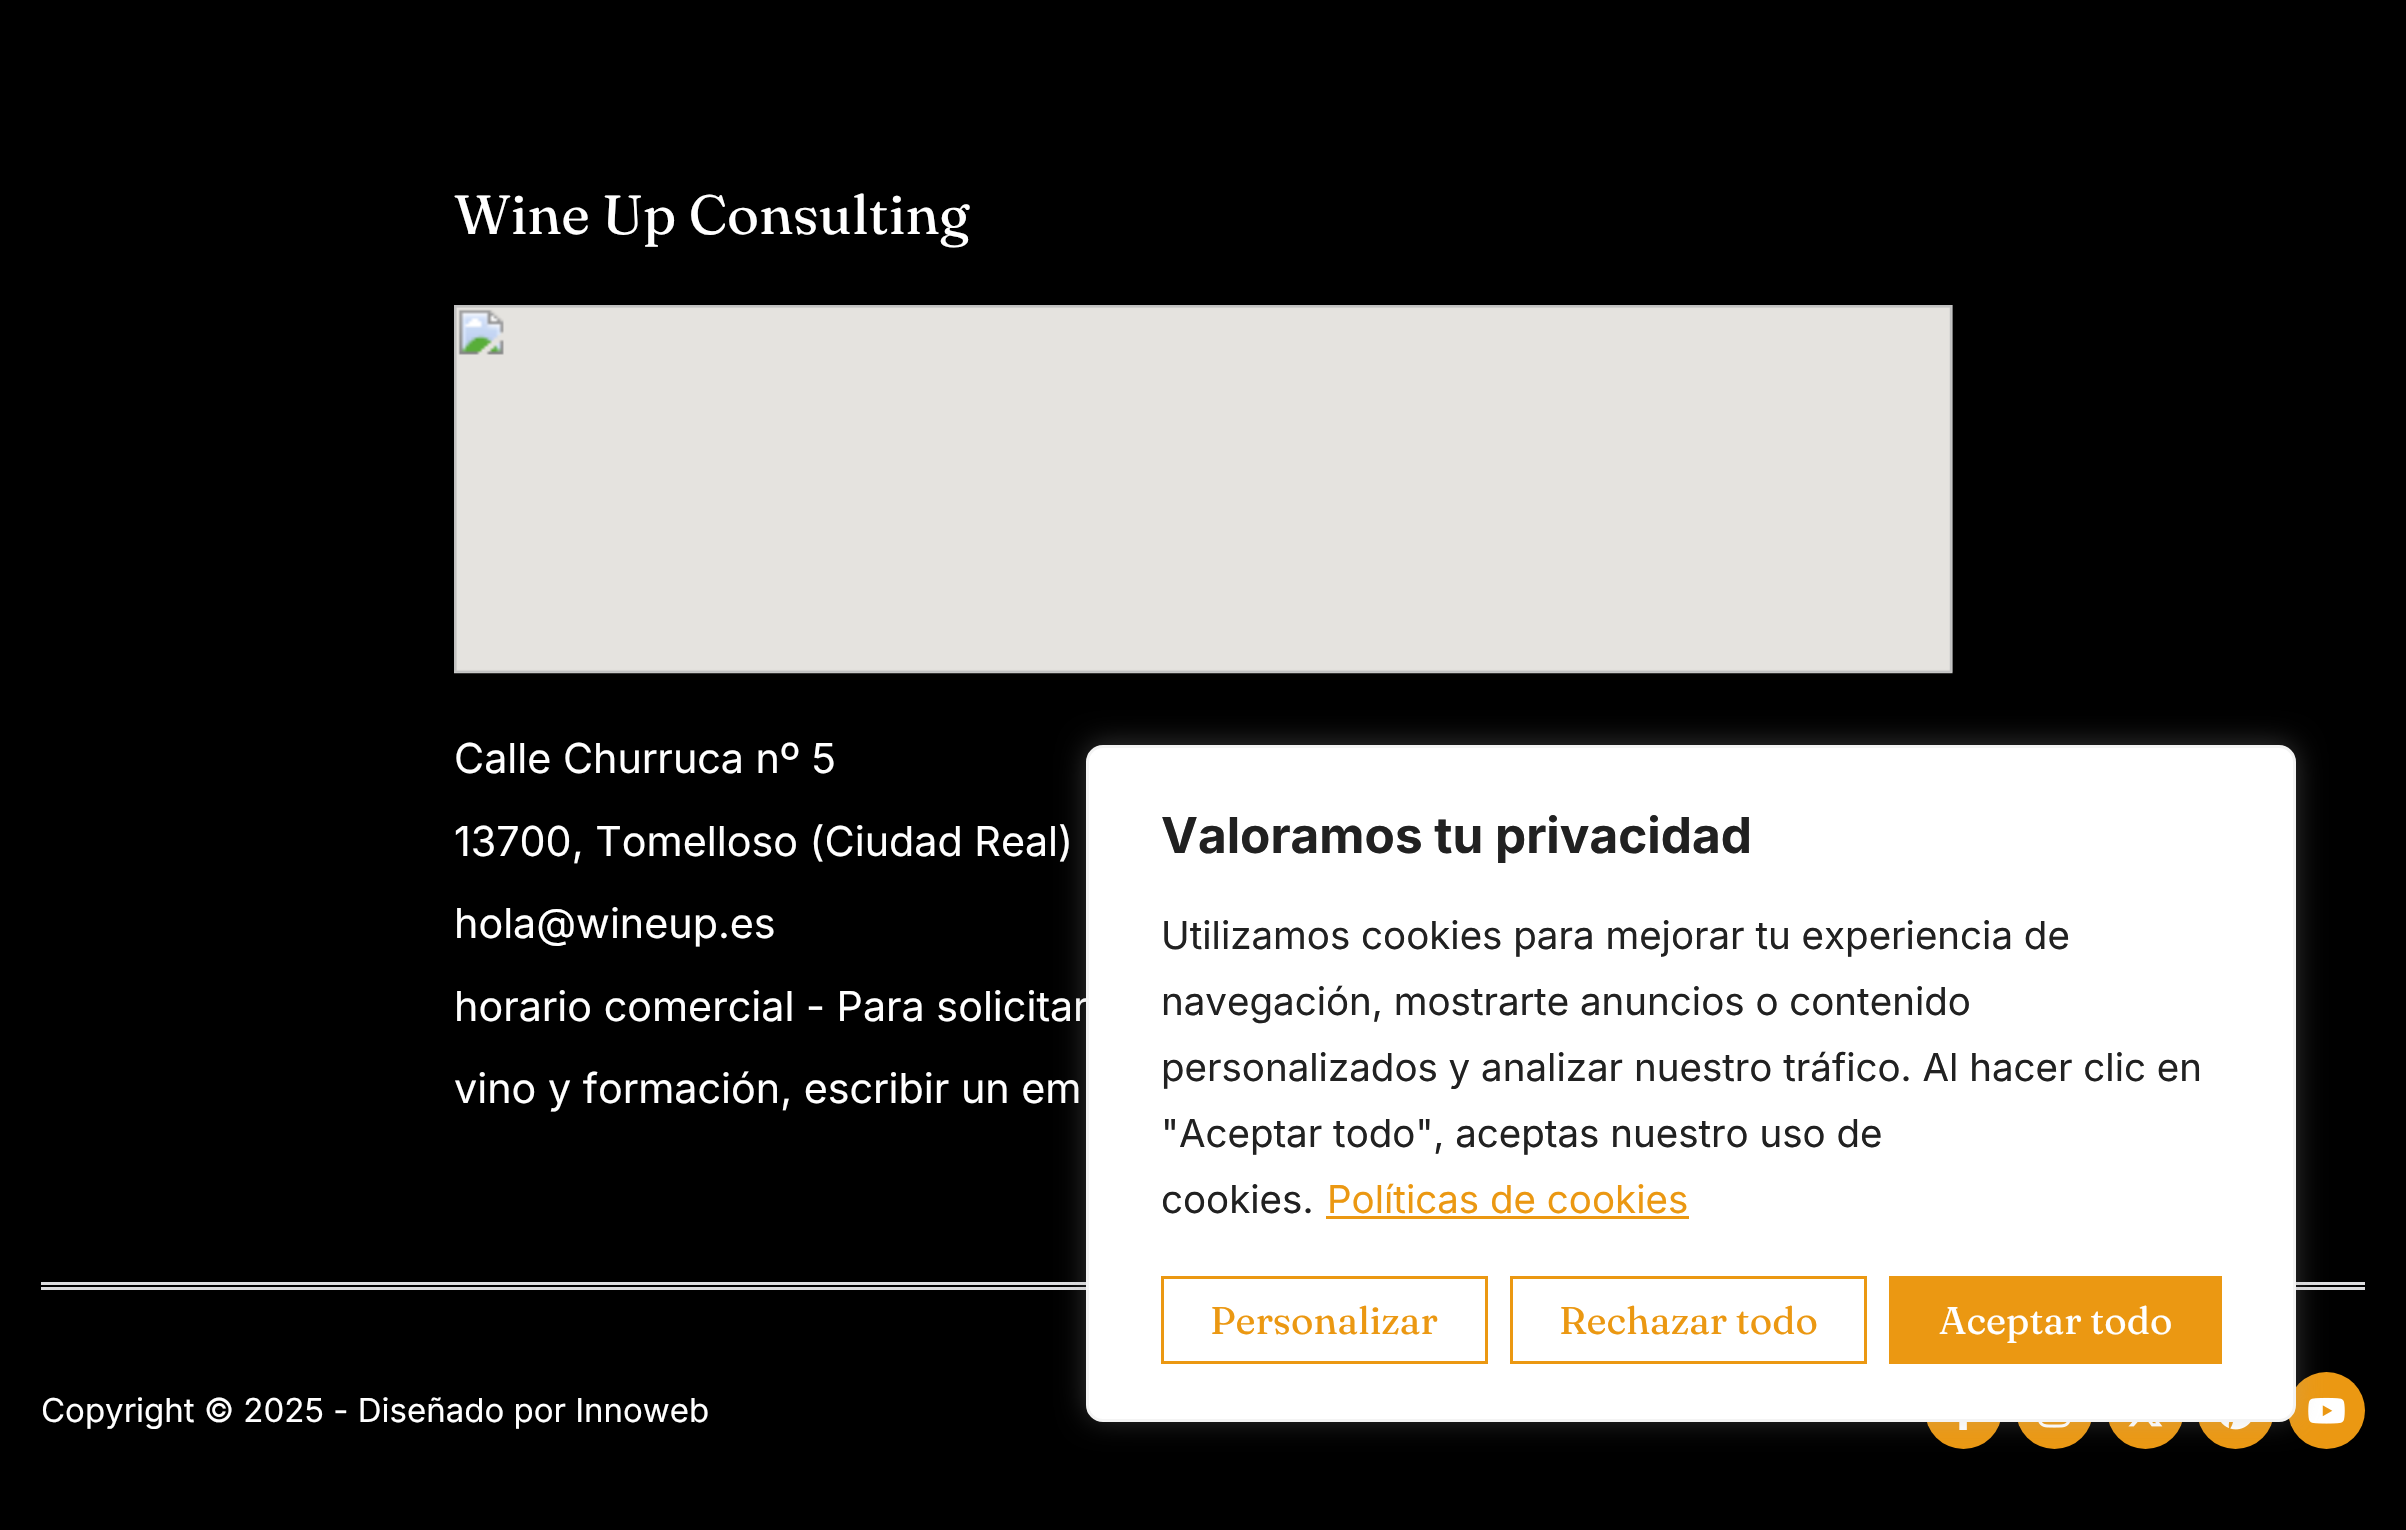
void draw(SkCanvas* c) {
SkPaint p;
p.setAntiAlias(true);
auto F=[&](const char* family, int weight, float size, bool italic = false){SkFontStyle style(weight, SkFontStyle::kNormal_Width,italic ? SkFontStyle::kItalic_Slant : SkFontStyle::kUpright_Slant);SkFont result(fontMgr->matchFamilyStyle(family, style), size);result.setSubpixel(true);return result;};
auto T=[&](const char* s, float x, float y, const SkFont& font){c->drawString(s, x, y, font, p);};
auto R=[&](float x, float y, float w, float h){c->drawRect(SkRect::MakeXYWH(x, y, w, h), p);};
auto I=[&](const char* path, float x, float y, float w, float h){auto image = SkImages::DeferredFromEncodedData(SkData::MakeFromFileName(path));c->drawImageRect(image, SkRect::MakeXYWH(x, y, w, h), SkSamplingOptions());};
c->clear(0xff000000);
auto f1 = F("Fraunces",400,55);
p.setColor(0xffffffff);
T("Wine Up Consulting",454,234,f1);
I("1.png",454,305,1499,369);
auto f2 = F("Inter",400,41.25);
T("Calle Churruca nº 5",454,773,f2);
T("13700, Tomelloso (Ciudad Real)",454,856,f2);
T("hola@wineup.es",454,938,f2);
T("horario comercial - Para solicitar",454,1021,f2);
T("vino y formación, escribir un em",454,1103,f2);
p.setColor(0xffdcdcde);
R(41,1282,2324,3);
R(41,1287,2324,3);
auto f3 = F("Inter",400,33);
p.setColor(0xffffffff);
T("Copyright © 2025 - Diseñado por Innoweb",41,1422,f3);
p.setColor(0xffeb9812);
c->drawCircle(1963.5,1410.5,38.5,p);
I("2.png",1959,1422,8,8);
c->drawCircle(2054.5,1410.5,38.5,p);
I("3.png",2038,1422,32,6);
c->drawCircle(2145.5,1410.5,38.5,p);
I("4.png",2128,1422,35,5);
c->drawCircle(2235.5,1410.5,38.5,p);
I("5.png",2221,1422,30,8);
c->drawCircle(2326.5,1410.5,38.5,p);
I("6.png",2308,1397,37,27);
p.setColor(0x4dacabab);
p.setMaskFilter(SkMaskFilter::MakeBlur(kNormal_SkBlurStyle, 14));
c->drawRoundRect(SkRect::MakeXYWH(1086,743,1210,676),17,17,p);
p.setMaskFilter(nullptr);
p.setColor(0xffffffff);
c->drawRoundRect(SkRect::MakeXYWH(1087.5,746.5,1207,674),15.5,15.5,p);
p.setStroke(true);
p.setStrokeWidth(3);
p.setColor(0xfff4f4f4);
c->drawRoundRect(SkRect::MakeXYWH(1087.5,746.5,1207,674),15.5,15.5,p);
auto f4 = F("Inter",700,49.5);
p.setStroke(false);
p.setColor(0xff212121);
T("Valoramos tu privacidad",1161,853,f4);
auto f5 = F("Inter",400,38.5);
T("Utilizamos cookies para mejorar tu experiencia de",1161,949,f5);
T("navegación, mostrarte anuncios o contenido",1161,1015,f5);
T("personalizados y analizar nuestro tráfico. Al hacer clic en",1161,1081,f5);
T("\"Aceptar todo\", aceptas nuestro uso de",1161,1147,f5);
T("cookies.",1161,1213,f5);
p.setColor(0xffeb9812);
T("Políticas de cookies",1327,1213,f5);
R(1326,1216,363,3);
p.setStroke(true);
c->drawRect(SkRect::MakeXYWH(1162.5,1277.5,324,85),p);
auto f6 = F("Fraunces",400,38.5);
p.setStroke(false);
T("Personalizar",1210,1334,f6);
p.setStroke(true);
c->drawRect(SkRect::MakeXYWH(1511.5,1277.5,354,85),p);
p.setStroke(false);
T("Rechazar todo",1559,1334,f6);
R(1889,1276,333,88);
p.setColor(0xffffffff);
T("Aceptar todo",1939,1334,f6);
}
